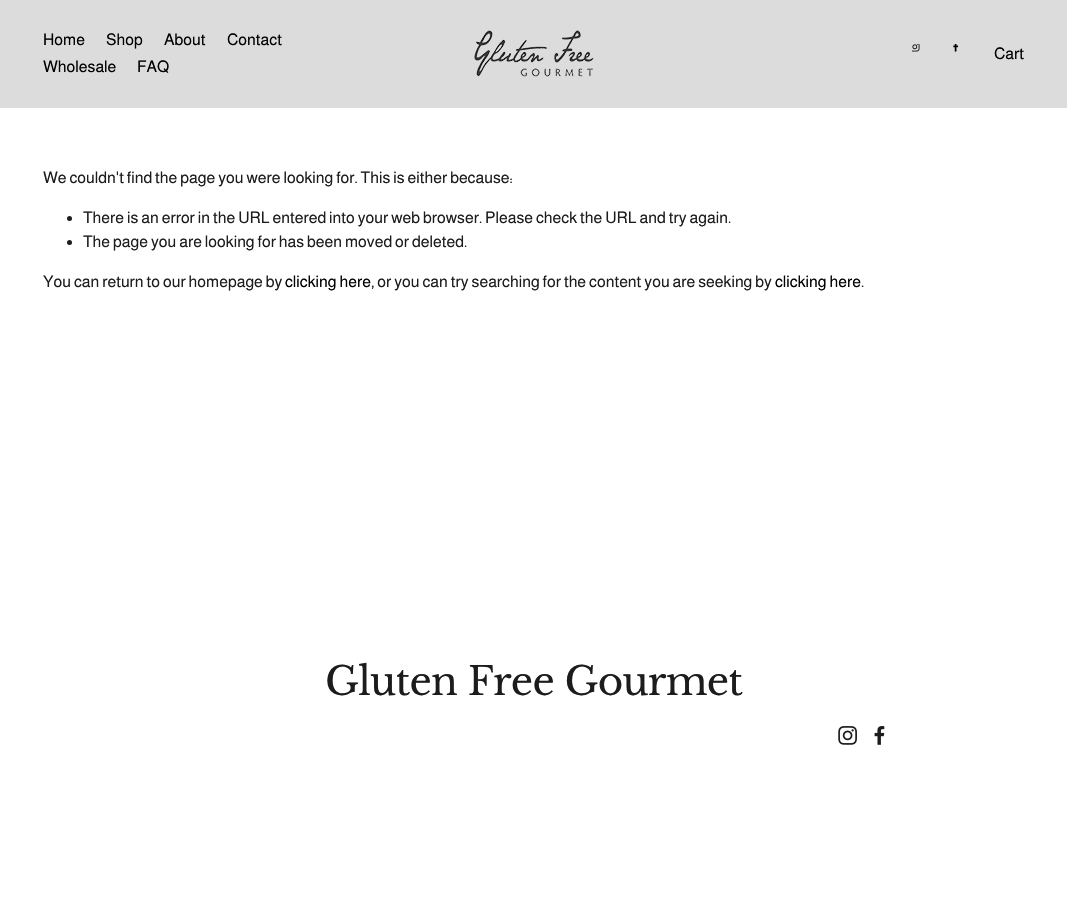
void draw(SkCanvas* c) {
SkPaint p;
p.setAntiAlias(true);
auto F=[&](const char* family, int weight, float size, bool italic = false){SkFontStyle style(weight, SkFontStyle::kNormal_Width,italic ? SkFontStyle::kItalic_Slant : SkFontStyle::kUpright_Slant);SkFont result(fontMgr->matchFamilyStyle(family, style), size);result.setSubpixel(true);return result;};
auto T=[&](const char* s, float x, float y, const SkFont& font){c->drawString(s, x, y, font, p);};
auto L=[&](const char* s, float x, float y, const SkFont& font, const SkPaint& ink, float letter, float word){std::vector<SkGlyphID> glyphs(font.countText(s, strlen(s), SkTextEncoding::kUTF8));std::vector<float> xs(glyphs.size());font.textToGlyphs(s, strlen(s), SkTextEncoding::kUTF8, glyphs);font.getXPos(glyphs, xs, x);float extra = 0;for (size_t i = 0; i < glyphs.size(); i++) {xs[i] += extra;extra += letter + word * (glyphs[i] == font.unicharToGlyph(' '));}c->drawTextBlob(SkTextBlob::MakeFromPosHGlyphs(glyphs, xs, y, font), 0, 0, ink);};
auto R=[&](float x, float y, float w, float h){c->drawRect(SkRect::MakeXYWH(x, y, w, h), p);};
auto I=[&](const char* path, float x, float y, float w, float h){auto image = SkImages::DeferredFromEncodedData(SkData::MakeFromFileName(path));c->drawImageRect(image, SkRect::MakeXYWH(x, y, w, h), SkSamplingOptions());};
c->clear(0xffffffff);
p.setColor(0xffdcdcdc);
R(0,0,1067,108);
auto f1 = F("Almarai",400,16);
p.setColor(0xff000000);
T("Home",43,45,f1);
T("Shop",106,45,f1);
T("About",164,45,f1);
T("Contact",227,45,f1);
T("Wholesale",43,72,f1);
T("FAQ",137,72,f1);
I("1.png",474,30,120,47);
I("2.png",912,44,8,8);
I("3.png",953,44,6,8);
T("Cart",994,59,f1);
p.setColor(0xff1c1c1c);
T("We couldn't find the page you were looking for. This is either because:",43,183,f1);
c->drawCircle(69.5,218.5,2.5,p);
T("There is an error in the URL entered into your web browser. Please check the URL and try again.",83,223,f1);
c->drawCircle(69.5,242.5,2.5,p);
T("The page you are looking for has been moved or deleted.",83,247,f1);
T("You can return to our homepage by",43,287,f1);
p.setColor(0xff000000);
T("clicking here",285,287,f1);
p.setColor(0xff1c1c1c);
T(", or you can try searching for the content you are seeking by",371,287,f1);
p.setColor(0xff000000);
T("clicking here",775,287,f1);
p.setColor(0xff1c1c1c);
T(".",861,287,f1);
auto f2 = F("Libre Baskerville",400,39);
L("Gluten Free Gourmet",325,695,f2,p,-.75,0);
I("4.png",838,726,19,19);
I("5.png",874,726,11,19);
}
